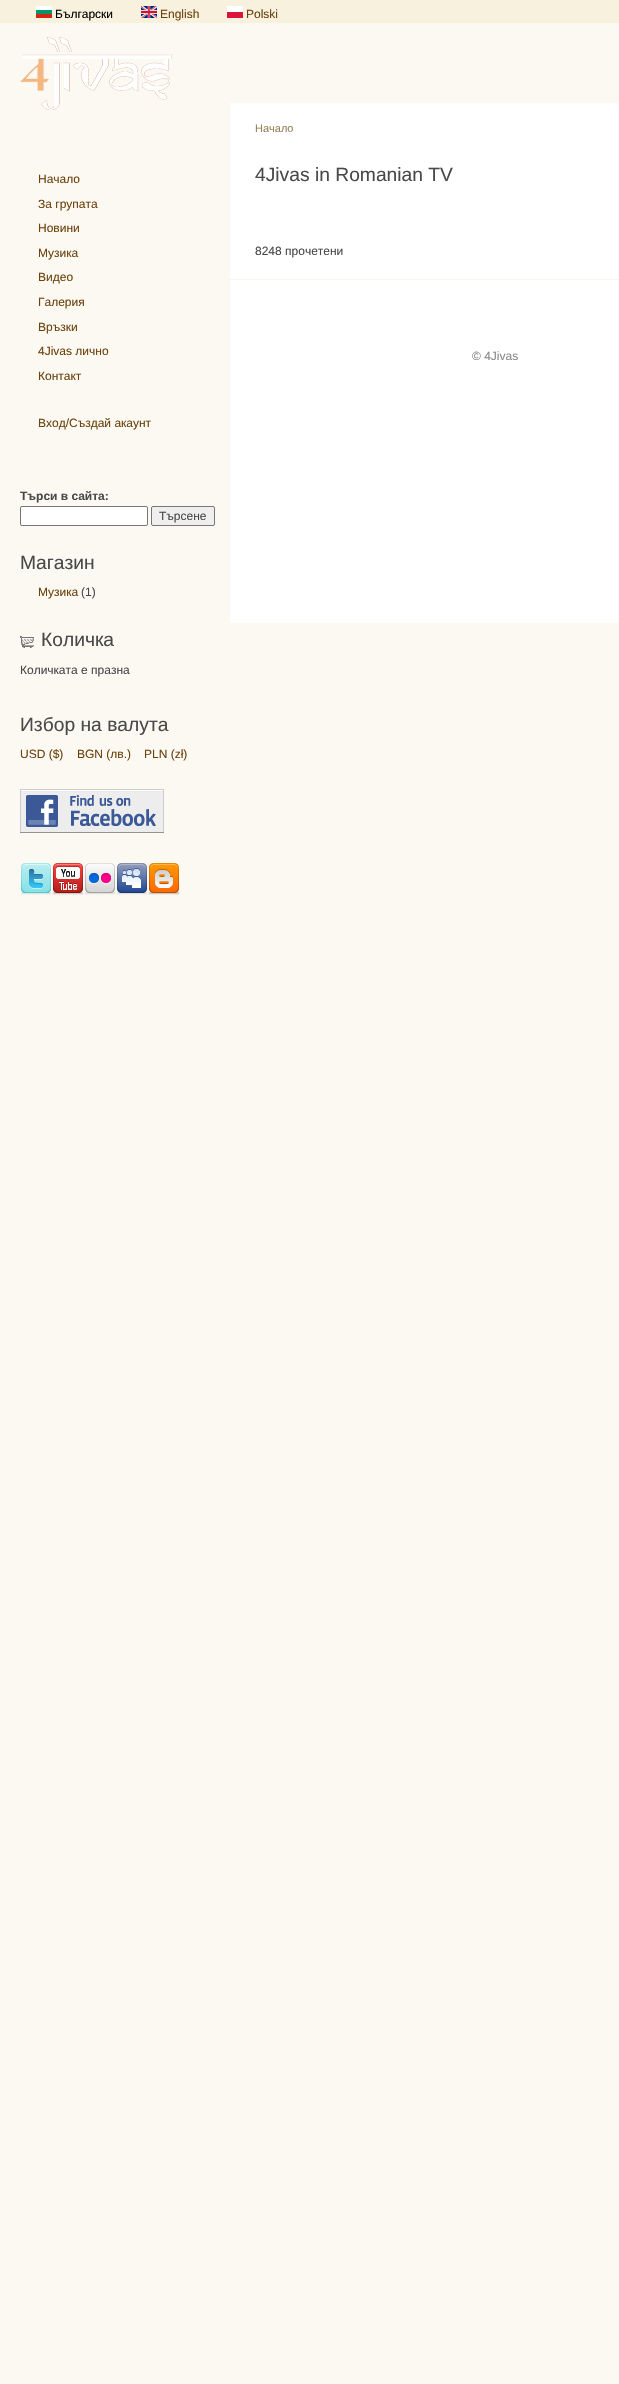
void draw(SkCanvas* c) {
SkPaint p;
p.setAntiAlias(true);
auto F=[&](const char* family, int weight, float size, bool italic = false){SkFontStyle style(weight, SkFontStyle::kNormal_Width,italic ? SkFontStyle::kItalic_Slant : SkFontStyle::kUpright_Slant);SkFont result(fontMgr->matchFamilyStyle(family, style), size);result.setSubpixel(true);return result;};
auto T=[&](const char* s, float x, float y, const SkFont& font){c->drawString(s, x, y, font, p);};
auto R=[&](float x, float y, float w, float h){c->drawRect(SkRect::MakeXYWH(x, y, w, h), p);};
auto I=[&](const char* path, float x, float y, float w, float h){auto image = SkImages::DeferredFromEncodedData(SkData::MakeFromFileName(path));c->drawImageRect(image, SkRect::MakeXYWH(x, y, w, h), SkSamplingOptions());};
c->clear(0xfffbf9f2);
p.setColor(0xfff7f1de);
R(0,0,619,23);
I("1.png",36,6,16,12);
auto f1 = F("Liberation Sans",400,12);
p.setColor(0xff000000);
T("Български",55,18,f1);
I("2.png",141,6,16,12);
p.setColor(0xff6c420e);
T("English",160,18,f1);
I("3.png",227,6,16,12);
T("Polski",246,18,f1);
I("4.png",20,37,152,73);
T("Начало",38,183,f1);
T("За групата",38,208,f1);
T("Новини",38,232,f1);
T("Музика",38,257,f1);
T("Видео",38,281,f1);
T("Галерия",38,306,f1);
T("Връзки",38,331,f1);
T("4Jivas лично",38,355,f1);
T("Контакт",38,380,f1);
T("Вход/Създай акаунт",38,427,f1);
auto f2 = F("Liberation Sans",700,12);
p.setColor(0xff494949);
T("Търси в сайта:",20,500,f2);
p.setColor(0xffffffff);
c->drawRoundRect(SkRect::MakeXYWH(20.5,506.5,127,19),1.5,1.5,p);
p.setStroke(true);
p.setStrokeWidth(1);
p.setColor(0xff767676);
c->drawRoundRect(SkRect::MakeXYWH(20.5,506.5,127,19),1.5,1.5,p);
p.setStroke(false);
p.setColor(0xffefefef);
c->drawRoundRect(SkRect::MakeXYWH(151.5,506.5,63,19),1.5,1.5,p);
p.setStroke(true);
p.setColor(0xff767676);
c->drawRoundRect(SkRect::MakeXYWH(151.5,506.5,63,19),1.5,1.5,p);
p.setStroke(false);
p.setColor(0xff494949);
T("Търсене",159,520,f1);
auto f3 = F("Liberation Sans",400,19.25);
T("Магазин",20,569,f3);
p.setColor(0xff6c420e);
T("Музика",38,596,f1);
p.setColor(0xff494949);
T("(1)",81,596,f1);
I("5.png",20,636,14,12);
T("Количка",41,646,f3);
T("Количката е празна",20,674,f1);
T("Избор на валута",20,731,f3);
p.setColor(0xff6c420e);
T("USD ($)",20,758,f1);
T("BGN (лв.)",77,758,f1);
T("PLN (zł)",144,758,f1);
I("6.png",20,789,144,44);
I("7.png",21,863,30,32);
I("8.png",52,863,32,32);
I("9.png",85,863,31,32);
I("10.png",117,863,30,32);
I("11.png",148,863,32,32);
p.setColor(0xffffffff);
R(230,103,389,520);
auto f4 = F("Liberation Sans",400,11);
p.setColor(0xff988059);
T("Начало",255,132,f4);
p.setColor(0xff494949);
T("4Jivas in Romanian TV",255,181,f3);
p.setColor(0xfff7f5ee);
R(229,279,390,1);
p.setColor(0xff494949);
T("8248 прочетени",255,255,f1);
p.setColor(0xff898989);
T("© 4Jivas",472,360,f1);
}
